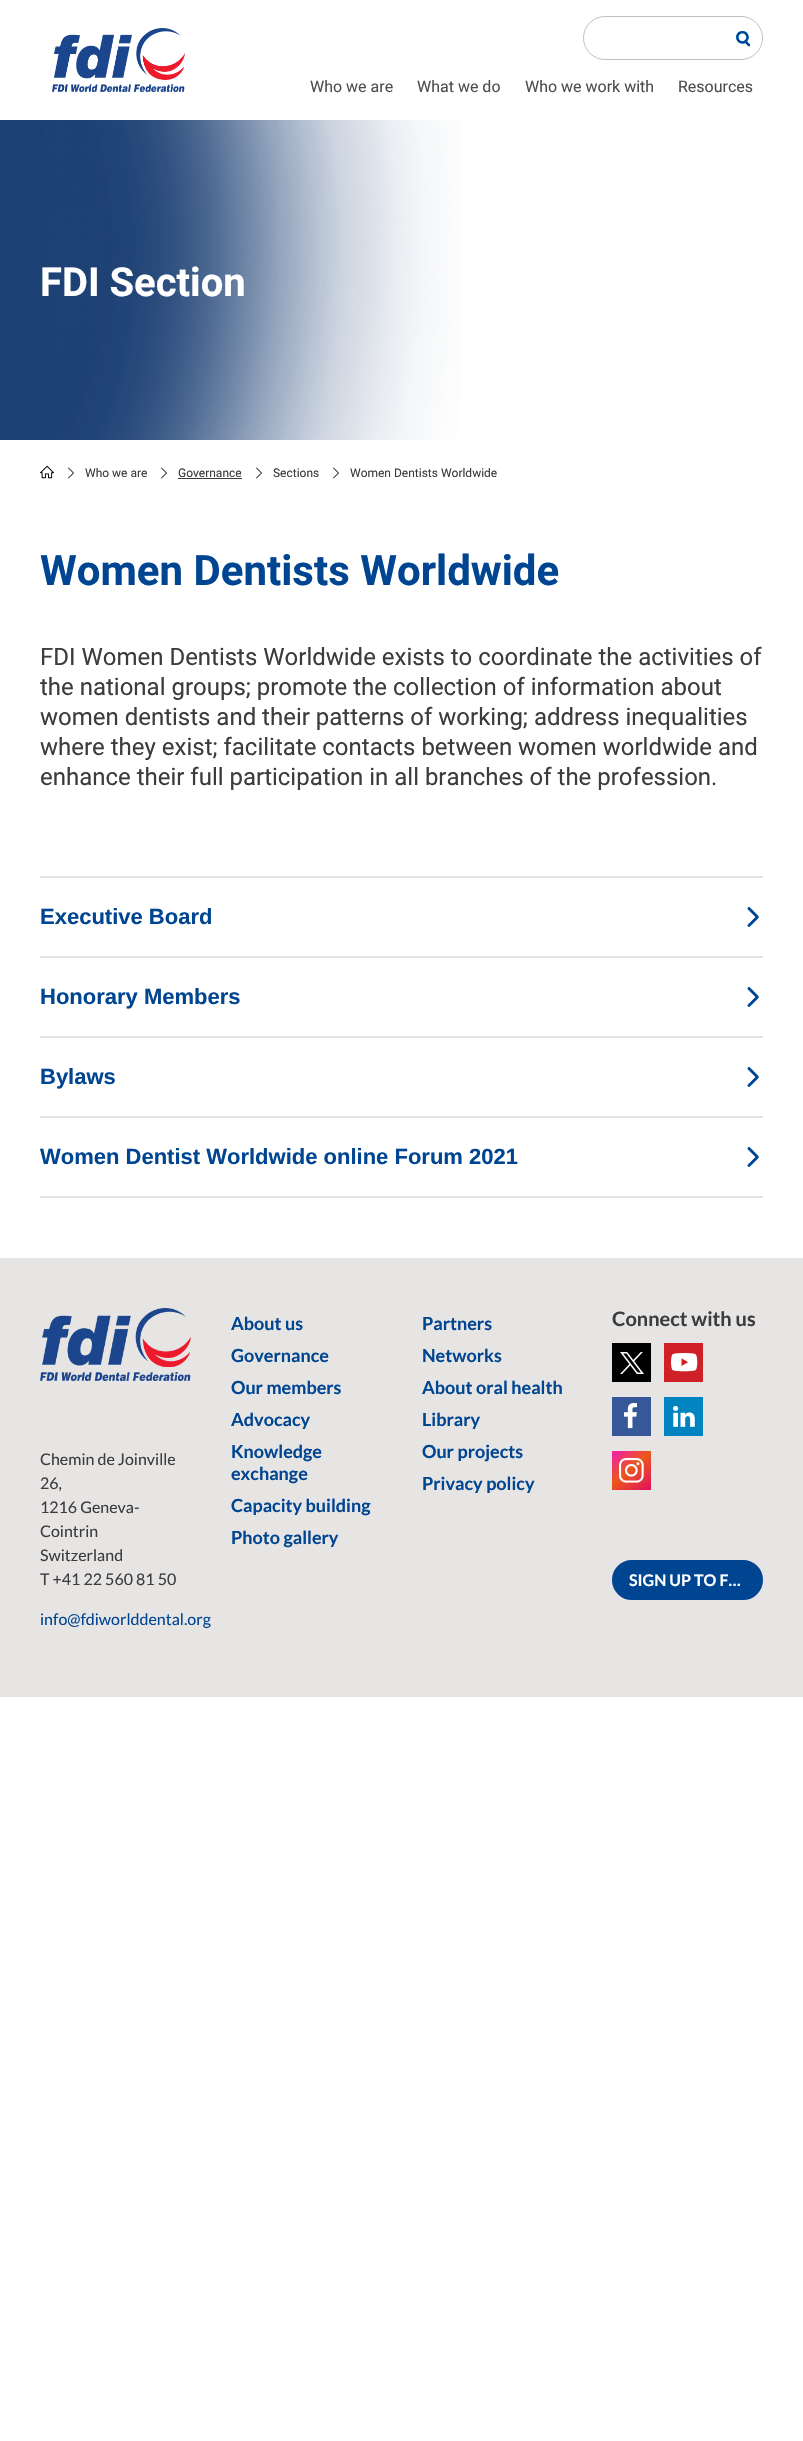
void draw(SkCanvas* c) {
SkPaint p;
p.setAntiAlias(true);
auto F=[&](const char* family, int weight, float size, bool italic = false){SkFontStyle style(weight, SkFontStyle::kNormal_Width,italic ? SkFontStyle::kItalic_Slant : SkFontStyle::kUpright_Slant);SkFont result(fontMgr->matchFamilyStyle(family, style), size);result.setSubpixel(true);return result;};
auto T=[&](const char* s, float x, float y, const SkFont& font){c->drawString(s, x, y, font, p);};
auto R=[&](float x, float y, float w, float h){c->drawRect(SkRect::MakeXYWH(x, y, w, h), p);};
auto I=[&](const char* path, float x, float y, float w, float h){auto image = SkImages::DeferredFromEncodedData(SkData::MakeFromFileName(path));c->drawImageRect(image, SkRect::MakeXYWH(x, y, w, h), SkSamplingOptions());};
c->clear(0xffffffff);
I("1.png",52,28,133,64);
p.setStroke(true);
p.setStrokeWidth(1);
p.setColor(0xffc1c1c1);
c->drawRoundRect(SkRect::MakeXYWH(583.5,16.5,179,43),21.5,21.5,p);
I("2.png",736,31,15,16);
auto f1 = F("Roboto",400,16);
p.setStroke(false);
p.setColor(0xff4d4d4d);
T("Who we are",310,92,f1);
T("What we do",417,92,f1);
T("Who we work with",525,92,f1);
T("Resources",678,92,f1);
I("3.png",0,120,461,320);
auto f2 = F("Roboto",700,40);
p.setColor(0xffffffff);
T("FDI Section",40,296,f2);
I("4.png",40,465,14,14);
I("5.png",68,467,6,12);
auto f3 = F("Roboto",400,12);
p.setColor(0xff3c3c3c);
T("Who we are",85,477,f3);
I("5.png",161,467,6,12);
T("Governance",178,477,f3);
R(178,478,64,1);
I("5.png",256,467,6,12);
T("Sections",273,477,f3);
I("5.png",333,467,6,12);
T("Women Dentists Worldwide",350,477,f3);
auto f4 = F("Roboto",700,42);
p.setColor(0xff004591);
T("Women Dentists Worldwide",40,585,f4);
auto f5 = F("Roboto",400,24);
p.setColor(0xff3c3c3c);
T("FDI Women Dentists Worldwide exists to coordinate the activities of",40,665,f5);
T("the national groups; promote the collection of information about",40,695,f5);
T("women dentists and their patterns of working; address inequalities",40,725,f5);
T("where they exist; facilitate contacts between women worldwide and",40,755,f5);
T("enhance their full participation in all branches of the profession.",40,785,f5);
p.setColor(0xffe3e3e3);
R(40,876,723,2);
auto f6 = F("Liberation Sans",700,22);
p.setColor(0xff004591);
T("Executive Board",40,924,f6);
I("6.png",747,907,12,20);
p.setColor(0xffe3e3e3);
R(40,956,723,2);
p.setColor(0xff004591);
T("Honorary Members",40,1004,f6);
I("6.png",747,987,12,20);
p.setColor(0xffe3e3e3);
R(40,1036,723,2);
p.setColor(0xff004591);
T("Bylaws",40,1084,f6);
I("6.png",747,1067,12,20);
p.setColor(0xffe3e3e3);
R(40,1116,723,2);
R(40,1196,723,2);
p.setColor(0xff004591);
T("Women Dentist Worldwide online Forum 2021",40,1164,f6);
I("6.png",747,1147,12,20);
p.setColor(0xffe7e4e4);
R(0,1258,803,439);
auto f7 = F("Lato",700,18);
p.setColor(0xff004591);
T("About us",231,1330,f7);
T("Governance",231,1362,f7);
T("Our members",231,1394,f7);
T("Advocacy",231,1426,f7);
T("Knowledge",231,1458,f7);
T("exchange",231,1480,f7);
T("Capacity building",231,1512,f7);
T("Photo gallery",231,1544,f7);
T("Partners",422,1330,f7);
T("Networks",422,1362,f7);
T("About oral health",422,1394,f7);
T("Library",422,1426,f7);
T("Our projects",422,1458,f7);
T("Privacy policy",422,1490,f7);
auto f8 = F("Lato",700,20);
p.setColor(0xff3c3c3c);
T("Connect with us",612,1326,f8);
p.setColor(0xffffffff);
R(620,1352,24,22);
I("7.png",612,1343,39,39);
R(671,1353,27,19);
I("8.png",664,1343,39,39);
R(624,1403,13,26);
I("9.png",612,1397,39,39);
R(673,1406,22,21);
I("10.png",664,1397,39,39);
R(619,1458,25,25);
I("11.png",612,1451,39,39);
p.setColor(0xff004591);
c->drawRoundRect(SkRect::MakeXYWH(613,1561,149,38),19,19,p);
p.setStroke(true);
p.setStrokeWidth(2);
c->drawRoundRect(SkRect::MakeXYWH(613,1561,149,38),19,19,p);
auto f9 = F("Lato",700,16);
p.setStroke(false);
p.setColor(0xffffffff);
T("SIGN UP TO F…",629,1586,f9);
I("12.png",40,1308,151,73);
auto f10 = F("Lato",400,16);
p.setColor(0xff3c3c3c);
T("Chemin de Joinville",40,1465,f10);
T("26,",40,1489,f10);
T("1216 Geneva-",40,1513,f10);
T("Cointrin",40,1537,f10);
T("Switzerland",40,1561,f10);
T("T +41 22 560 81 50",40,1585,f10);
p.setColor(0xff004591);
T("info@fdiworlddental.org",40,1625,f10);
}
